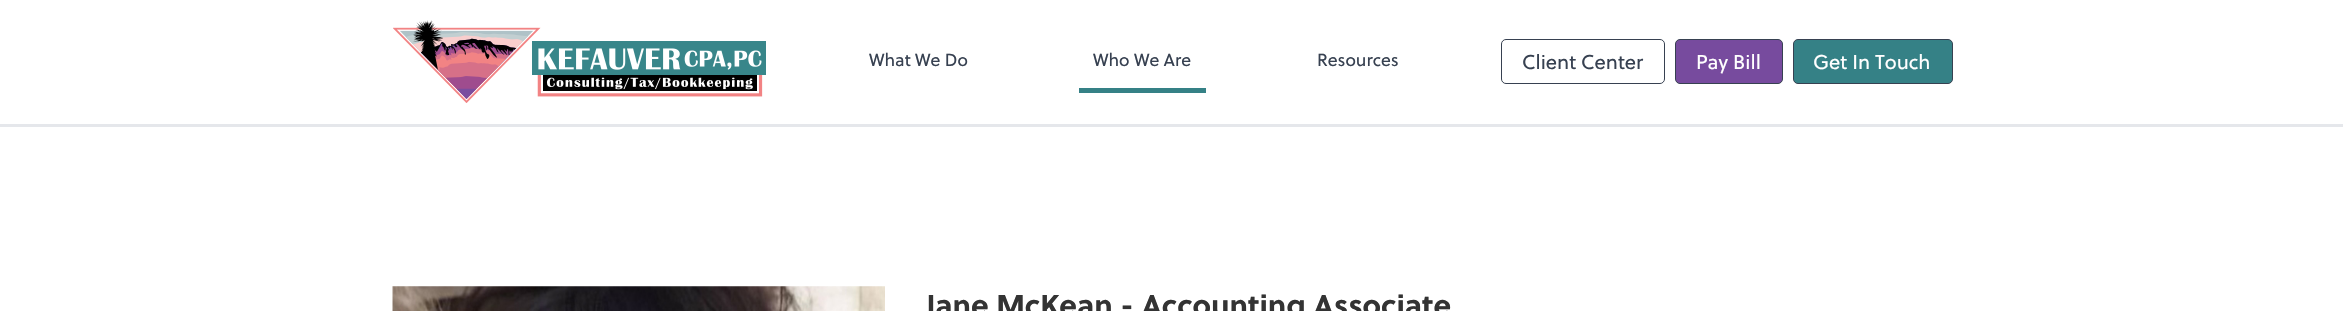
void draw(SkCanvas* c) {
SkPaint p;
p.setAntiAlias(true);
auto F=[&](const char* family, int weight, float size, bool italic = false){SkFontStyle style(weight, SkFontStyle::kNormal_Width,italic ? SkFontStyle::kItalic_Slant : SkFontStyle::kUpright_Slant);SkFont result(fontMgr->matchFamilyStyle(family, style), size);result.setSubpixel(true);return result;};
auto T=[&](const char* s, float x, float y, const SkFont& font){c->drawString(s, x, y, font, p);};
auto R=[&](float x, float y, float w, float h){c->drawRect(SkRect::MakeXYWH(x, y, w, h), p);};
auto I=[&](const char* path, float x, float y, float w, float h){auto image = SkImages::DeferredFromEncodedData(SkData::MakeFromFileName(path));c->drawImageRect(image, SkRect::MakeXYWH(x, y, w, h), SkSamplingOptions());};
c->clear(0xffffffff);
p.setColor(0xffe5e7eb);
R(0,124,2343,3);
I("1.png",393,20,373,83);
auto f1 = F("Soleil",400,17.5);
p.setColor(0xff374151);
T("What We Do",869,66,f1);
p.setColor(0xff358186);
R(1079,88,127,5);
p.setColor(0xff374151);
T("Who We Are",1093,66,f1);
T("Resources",1317,66,f1);
p.setStroke(true);
p.setStrokeWidth(1);
c->drawRoundRect(SkRect::MakeXYWH(1501.5,39.5,163,44),4.5,4.5,p);
auto f2 = F("Soleil",400,20);
p.setStroke(false);
T("Client Center",1522,69,f2);
p.setColor(0xff774b9e);
c->drawRoundRect(SkRect::MakeXYWH(1675.5,39.5,107,44),4.5,4.5,p);
p.setStroke(true);
p.setColor(0xff374151);
c->drawRoundRect(SkRect::MakeXYWH(1675.5,39.5,107,44),4.5,4.5,p);
p.setStroke(false);
p.setColor(0xffffffff);
T("Pay Bill",1696,69,f2);
p.setColor(0xff358186);
c->drawRoundRect(SkRect::MakeXYWH(1793.5,39.5,159,44),4.5,4.5,p);
p.setStroke(true);
p.setColor(0xff374151);
c->drawRoundRect(SkRect::MakeXYWH(1793.5,39.5,159,44),4.5,4.5,p);
p.setStroke(false);
p.setColor(0xffffffff);
T("Get In Touch",1813,69,f2);
I("2.png",392,286,493,25);
auto f3 = F("Soleil",700,30);
p.setColor(0xff333333);
T("Jane McKean - Accounting Associate",925,316,f3);
}
